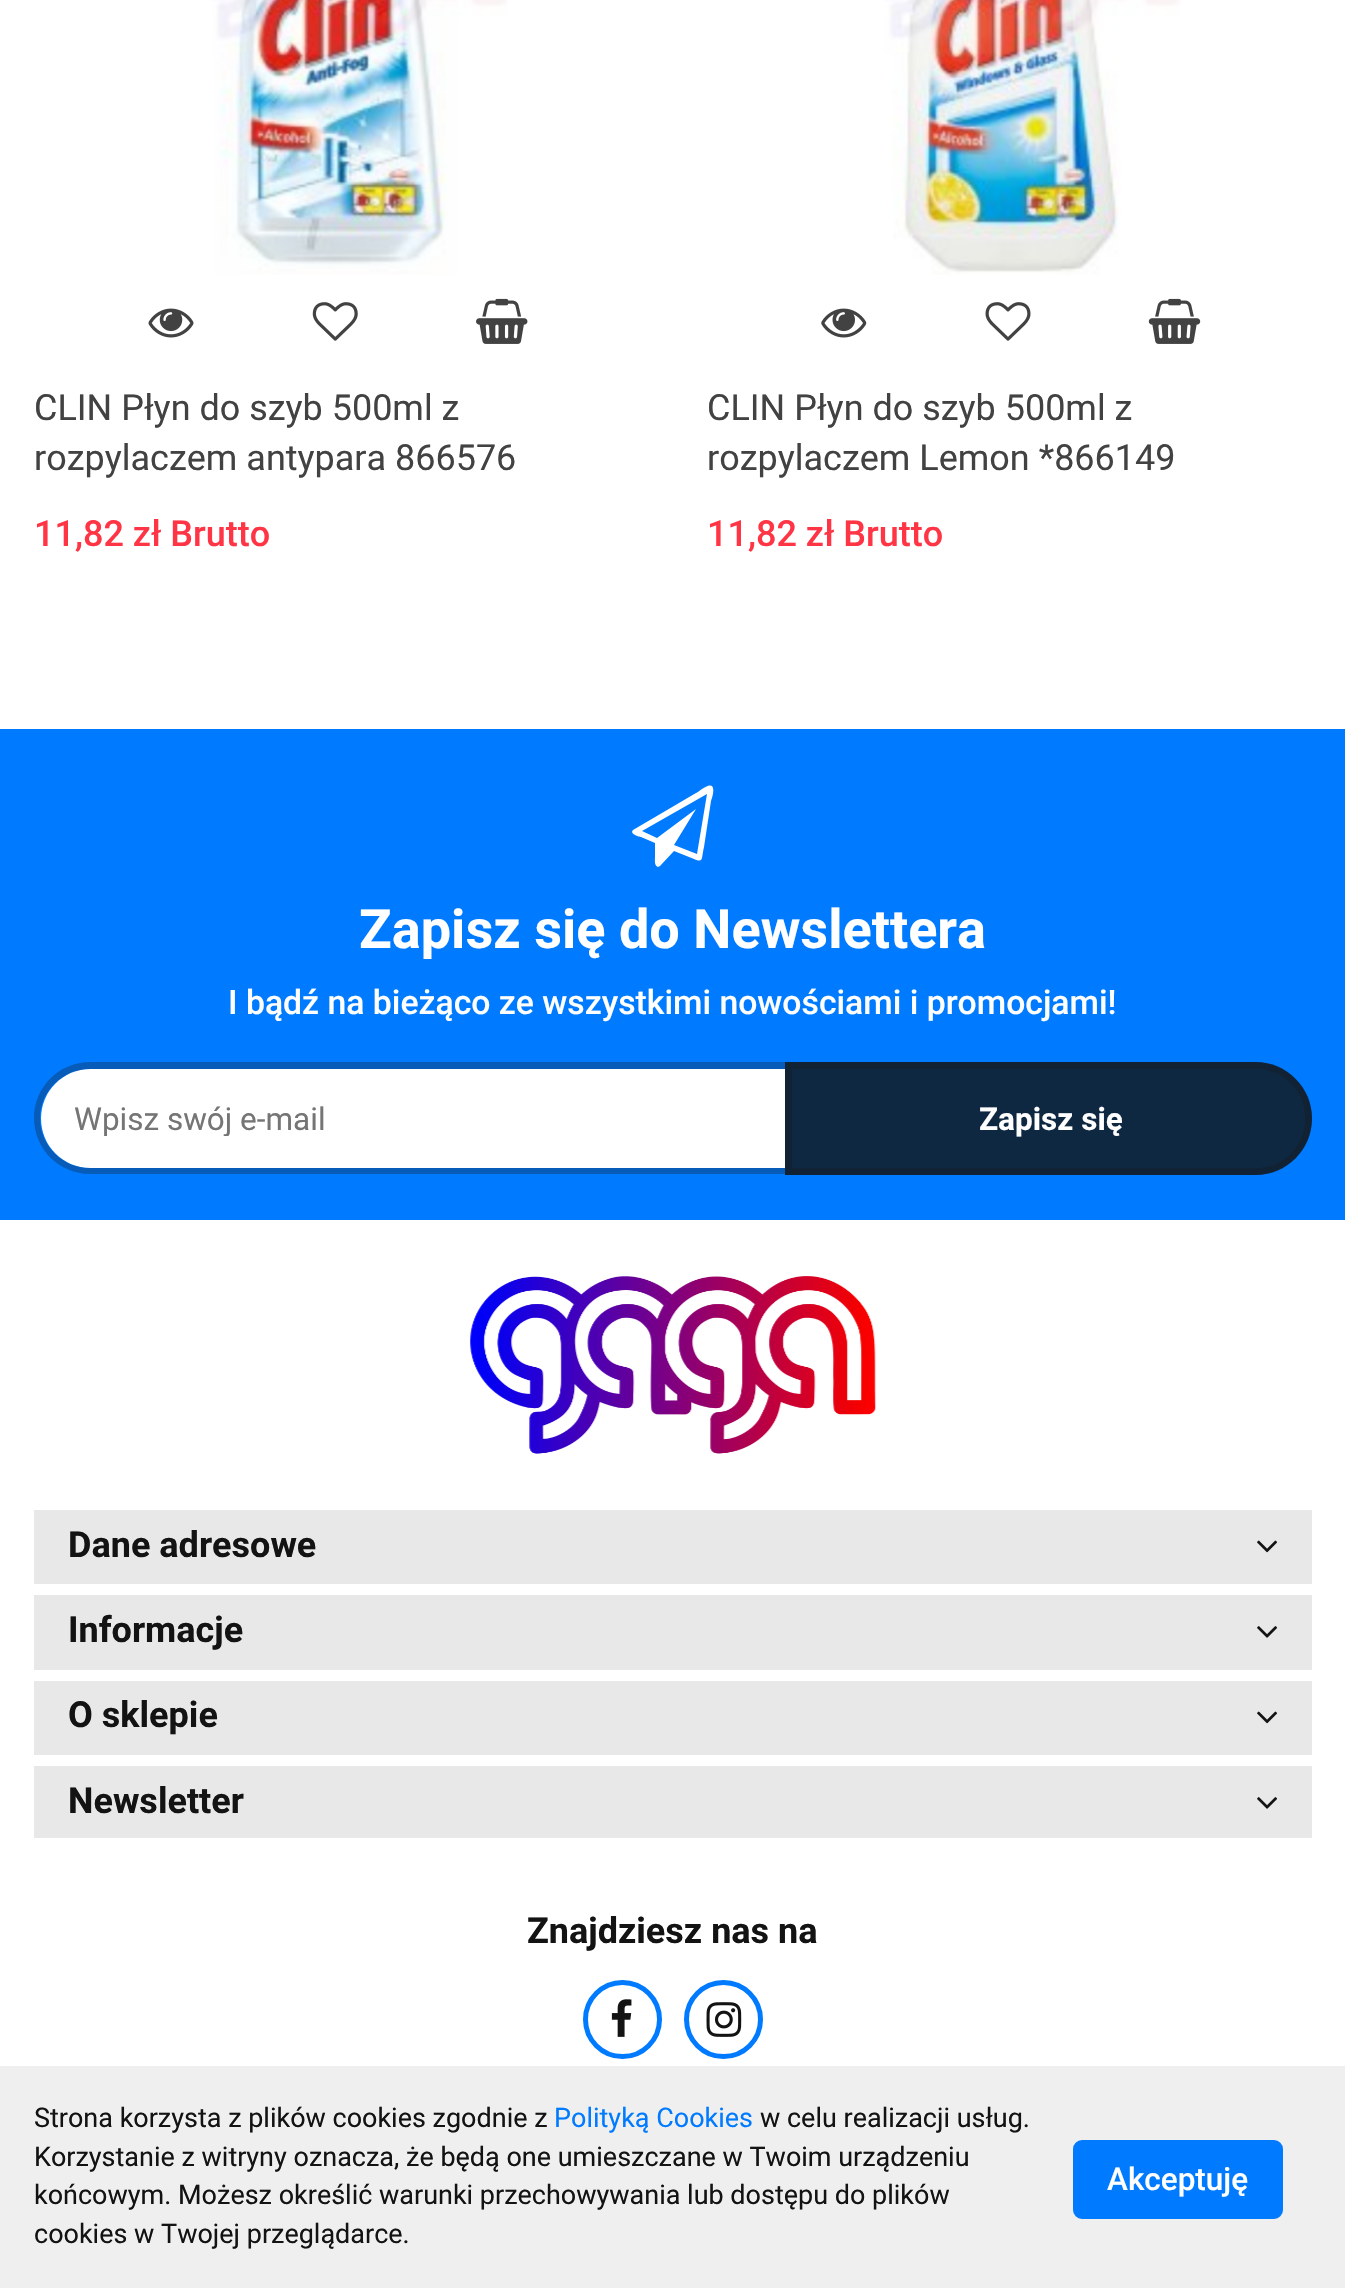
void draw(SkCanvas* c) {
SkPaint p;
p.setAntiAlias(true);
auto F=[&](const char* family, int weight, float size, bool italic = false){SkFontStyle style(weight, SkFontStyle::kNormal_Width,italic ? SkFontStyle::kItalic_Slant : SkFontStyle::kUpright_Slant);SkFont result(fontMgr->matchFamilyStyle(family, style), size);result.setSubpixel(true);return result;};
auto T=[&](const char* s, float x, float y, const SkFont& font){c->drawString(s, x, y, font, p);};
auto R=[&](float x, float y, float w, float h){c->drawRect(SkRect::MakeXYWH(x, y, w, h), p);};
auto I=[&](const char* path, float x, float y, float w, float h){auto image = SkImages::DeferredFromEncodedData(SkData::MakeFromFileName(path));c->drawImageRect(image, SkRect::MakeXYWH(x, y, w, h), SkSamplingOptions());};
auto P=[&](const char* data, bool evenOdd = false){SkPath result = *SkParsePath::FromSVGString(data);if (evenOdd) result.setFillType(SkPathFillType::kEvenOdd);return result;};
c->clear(0xffffffff);
I("1.png",212,0,296,275);
I("2.png",148,308,46,30);
I("3.png",312,302,46,39);
I("4.png",476,298,52,46);
auto f1 = F("Roboto",400,36);
p.setColor(0xff424242);
T("CLIN Płyn do szyb 500ml z",34,420,f1);
T("rozpylaczem antypara 866576",34,470,f1);
auto f2 = F("Roboto",500,36);
p.setColor(0xffff3545);
T("11,82 zł Brutto",34,546,f2);
I("5.png",884,0,297,275);
I("6.png",821,308,46,30);
I("7.png",985,302,46,39);
I("8.png",1148,298,53,46);
p.setColor(0xff424242);
T("CLIN Płyn do szyb 500ml z",707,420,f1);
T("rozpylaczem Lemon *866149",707,470,f1);
p.setColor(0xffff3545);
T("11,82 zł Brutto",707,546,f2);
p.setColor(0xff007bff);
R(0,729,1345,491);
p.setColor(0xffffffff);
c->drawPath(P("M712 786c3 3 0 12-1 15l-7 46c-3 12 0 16-10 12l-20-8l-14 15l-2 1c-4-1-3-8-3-10v-14l-14-6c-1 0-12-3-8-7l63-37c1 0 12-10 16-7zm-15 68l10-60l-65 37l15 7l39-29l-22 36z"),p);
auto f3 = F("Roboto",700,54);
T("Zapisz się do Newslettera",359,948,f3);
auto f4 = F("Roboto",500,33.75);
T("I bądź na bieżąco ze wszystkimi nowościami i promocjami!",228,1014,f4);
c->drawPath(P("M90.5 1069h694.5v99h-694.5c-27.5 0-49.5-22-49.5-49.5c0-27.5 22-49.5 49.5-49.5z"),p);
p.setColor(0x4d131313);
c->drawPath(P("M90 1062h695v112h-695c-31 0-56-25-56-56c0-31 25-56 56-56zm0 7h695v99h-695c-27 0-50-22-50-50c0-27 23-49 50-49z",true),p);
c->save();
c->clipRect(SkRect::MakeXYWH(74,1100,678,36));
auto f5 = F("Roboto",400,31.5);
p.setColor(0xff757575);
T("Wpisz swój e-mail",74,1130,f5);
c->restore();
p.setColor(0xff0f2842);
c->drawPath(P("M785 1062h470.5c31 0 56.5 25.5 56.5 56.5c0 31-25.5 56.5-56.5 56.5h-470.5z"),p);
p.setStroke(true);
p.setStrokeWidth(7);
p.setColor(0x4d131313);
c->drawPath(P("M788.5 1065.5h467c29.5 0 53 23.5 53 53c0 29.5-23.5 53-53 53h-467z"),p);
auto f6 = F("Roboto",700,31.5);
p.setStroke(false);
p.setColor(0xffffffff);
T("Zapisz się",979,1130,f6);
I("9.png",470,1276,406,178);
p.setColor(0xffe8e8e8);
R(34,1510,1278,74);
auto f7 = F("Roboto",700,36);
p.setColor(0xff131313);
T("Dane adresowe",68,1557,f7);
I("10.png",1257,1540,21,13);
p.setColor(0xffe8e8e8);
R(34,1595,1278,75);
p.setColor(0xff131313);
T("Informacje",68,1642,f7);
I("11.png",1257,1626,21,12);
p.setColor(0xffe8e8e8);
R(34,1681,1278,74);
p.setColor(0xff131313);
T("O sklepie",68,1727,f7);
I("10.png",1257,1711,21,13);
p.setColor(0xffe8e8e8);
R(34,1766,1278,72);
p.setColor(0xff131313);
T("Newsletter",68,1813,f7);
I("11.png",1257,1797,21,12);
T("Znajdziesz nas na",527,1943,f7);
p.setStroke(true);
p.setStrokeWidth(5);
p.setColor(0xff007bff);
c->drawCircle(622.5,2019.5,37,p);
I("12.png",611,1999,21,38);
c->drawCircle(723.5,2019.5,37,p);
I("13.png",706,2002,36,35);
p.setStroke(false);
p.setColor(0xffefefef);
R(0,2066,1345,222);
auto f8 = F("Roboto",400,27);
p.setColor(0xff131313);
T("Strona korzysta z plików cookies zgodnie z",34,2127,f8);
p.setColor(0xff007bff);
T("Polityką Cookies",554,2127,f8);
p.setColor(0xff131313);
T("w celu realizacji usług.",760,2127,f8);
T("Korzystanie z witryny oznacza, że będą one umieszczane w Twoim urządzeniu",34,2166,f8);
T("końcowym. Możesz określić warunki przechowywania lub dostępu do plików",34,2204,f8);
T("cookies w Twojej przeglądarce.",34,2243,f8);
p.setColor(0xff007bff);
c->drawRoundRect(SkRect::MakeXYWH(1076.5,2143.5,203,72),5.5,5.5,p);
p.setStroke(true);
p.setStrokeWidth(7);
c->drawRoundRect(SkRect::MakeXYWH(1076.5,2143.5,203,72),5.5,5.5,p);
auto f9 = F("Roboto",500,31.5);
p.setStroke(false);
p.setColor(0xffffffff);
T("Akceptuję",1107,2190,f9);
}
